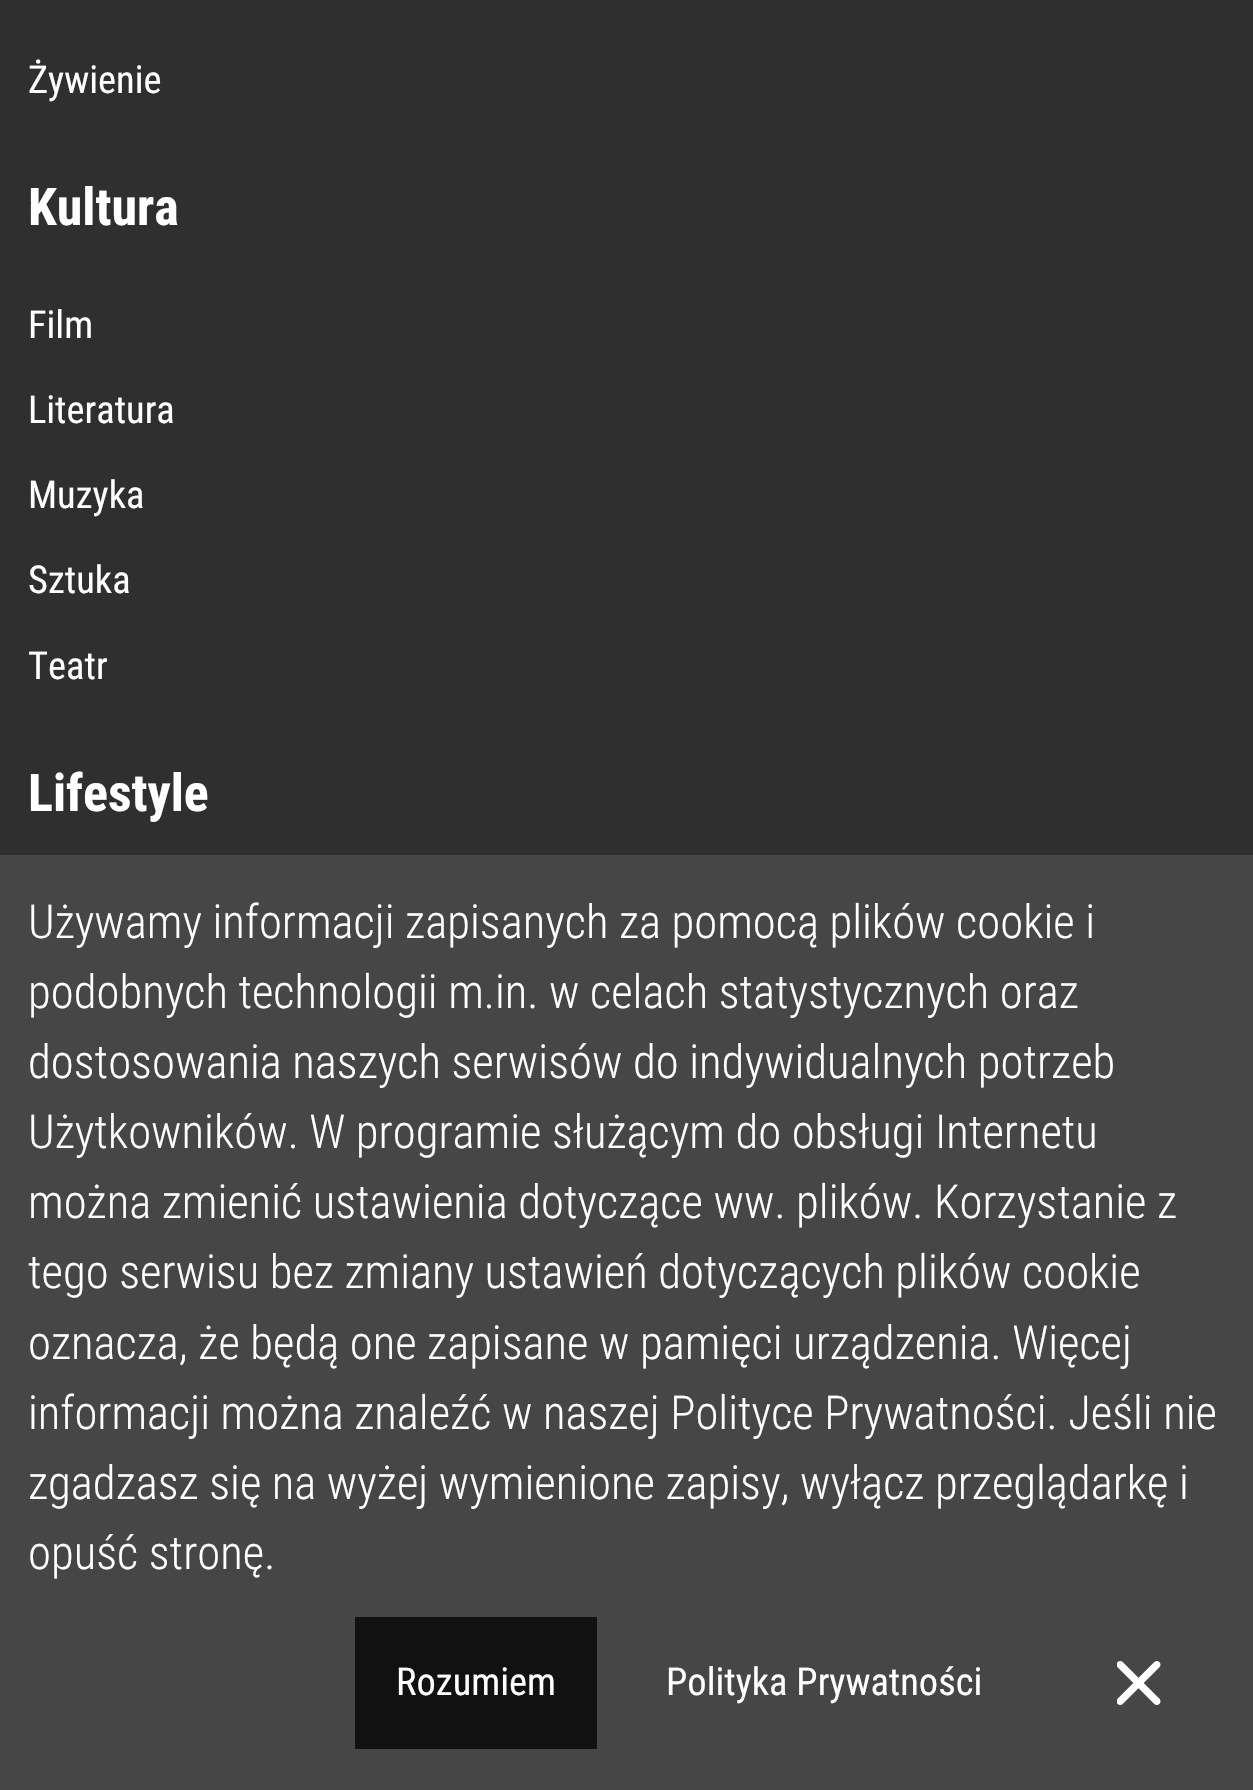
void draw(SkCanvas* c) {
SkPaint p;
p.setAntiAlias(true);
auto F=[&](const char* family, int weight, float size, bool italic = false){SkFontStyle style(weight, SkFontStyle::kNormal_Width,italic ? SkFontStyle::kItalic_Slant : SkFontStyle::kUpright_Slant);SkFont result(fontMgr->matchFamilyStyle(family, style), size);result.setSubpixel(true);return result;};
auto T=[&](const char* s, float x, float y, const SkFont& font){c->drawString(s, x, y, font, p);};
auto R=[&](float x, float y, float w, float h){c->drawRect(SkRect::MakeXYWH(x, y, w, h), p);};
auto I=[&](const char* path, float x, float y, float w, float h){auto image = SkImages::DeferredFromEncodedData(SkData::MakeFromFileName(path));c->drawImageRect(image, SkRect::MakeXYWH(x, y, w, h), SkSamplingOptions());};
c->clear(0xff2f2f2f);
auto f1 = F("Roboto Condensed",400,38.5);
p.setColor(0xffffffff);
T("Żywienie",28,93,f1);
auto f2 = F("Roboto Condensed",700,52);
T("Kultura",28,225,f2);
T("Film",28,338,f1);
T("Literatura",28,423,f1);
T("Muzyka",28,508,f1);
T("Sztuka",28,593,f1);
T("Teatr",28,679,f1);
T("Lifestyle",28,811,f2);
p.setColor(0xff464646);
R(0,855,1253,935);
auto f3 = F("Roboto Condensed",300,46.75);
p.setColor(0xffffffff);
T("Używamy informacji zapisanych za pomocą plików cookie i",28,938,f3);
T("podobnych technologii m.in. w celach statystycznych oraz",28,1008,f3);
T("dostosowania naszych serwisów do indywidualnych potrzeb",28,1078,f3);
T("Użytkowników. W programie służącym do obsługi Internetu",28,1148,f3);
T("można zmienić ustawienia dotyczące ww. plików. Korzystanie z",28,1218,f3);
T("tego serwisu bez zmiany ustawień dotyczących plików cookie",28,1288,f3);
T("oznacza, że będą one zapisane w pamięci urządzenia. Więcej",28,1359,f3);
T("informacji można znaleźć w naszej Polityce Prywatności. Jeśli nie",28,1429,f3);
T("zgadzasz się na wyżej wymienione zapisy, wyłącz przeglądarkę i",28,1499,f3);
T("opuść stronę.",28,1569,f3);
p.setColor(0xff111111);
R(355,1617,242,132);
p.setColor(0xffffffff);
T("Rozumiem",396,1695,f1);
T("Polityka Prywatności",666,1695,f1);
I("1.png",1117,1661,44,44);
}
